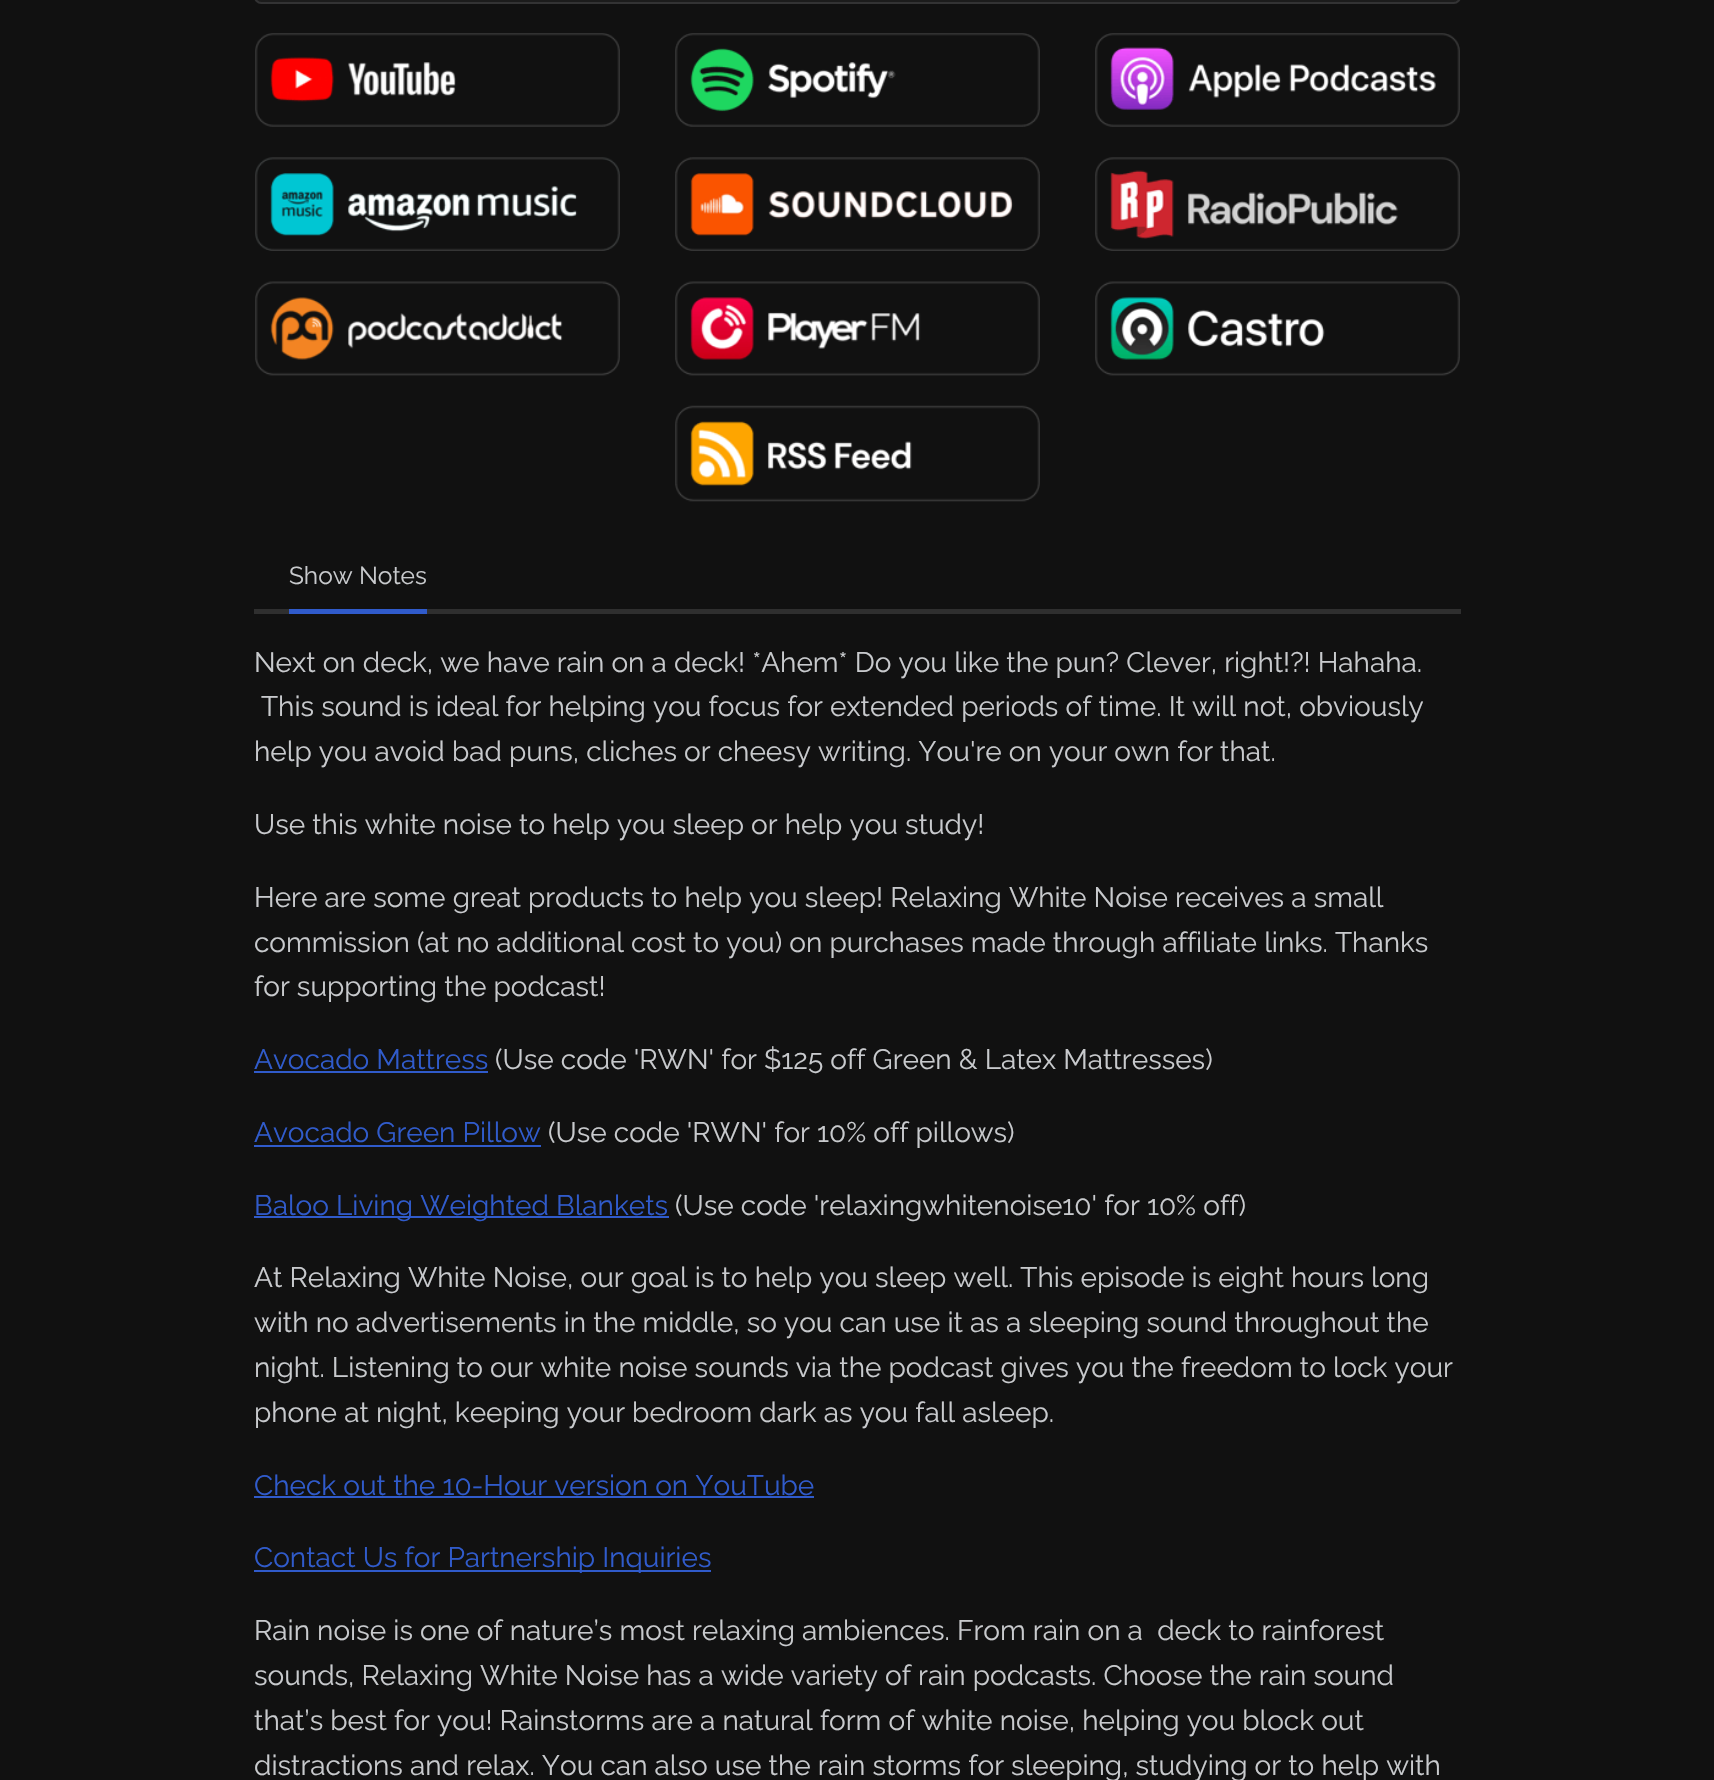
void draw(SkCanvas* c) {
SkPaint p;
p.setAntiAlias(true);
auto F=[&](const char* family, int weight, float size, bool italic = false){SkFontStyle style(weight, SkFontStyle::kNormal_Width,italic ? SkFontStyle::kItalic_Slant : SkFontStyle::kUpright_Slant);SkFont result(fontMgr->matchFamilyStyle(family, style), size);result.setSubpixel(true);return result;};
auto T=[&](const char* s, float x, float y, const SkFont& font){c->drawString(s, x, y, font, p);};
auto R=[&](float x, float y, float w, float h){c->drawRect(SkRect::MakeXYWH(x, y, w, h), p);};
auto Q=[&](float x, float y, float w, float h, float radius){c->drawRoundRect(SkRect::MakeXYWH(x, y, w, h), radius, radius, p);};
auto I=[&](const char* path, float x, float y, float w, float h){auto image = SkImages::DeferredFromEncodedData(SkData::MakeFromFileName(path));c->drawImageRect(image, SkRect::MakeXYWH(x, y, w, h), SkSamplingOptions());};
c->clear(0xff111111);
p.setColor(0xff1c1c1c);
Q(254,-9,1207,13,9);
p.setStroke(true);
p.setStrokeWidth(2);
p.setColor(0x1af6f8fc);
c->drawRoundRect(SkRect::MakeXYWH(255,-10,1205,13),8,8,p);
I("1.png",255,33,365,94);
I("2.png",675,33,365,94);
I("3.png",1095,33,365,94);
I("4.png",255,157,365,94);
I("5.png",675,157,365,94);
I("6.png",1095,157,365,94);
I("7.png",255,281,365,95);
I("8.png",675,281,365,95);
I("9.png",1095,281,365,95);
I("10.png",675,405,365,97);
p.setStroke(false);
p.setColor(0xff2f2f2f);
R(254,609,1207,5);
p.setColor(0xff305bcb);
R(289,609,138,5);
auto f1 = F("Raleway",400,24.5);
p.setColor(0xffc8cacd);
T("Show Notes",289,584,f1);
auto f2 = F("Raleway",400,28);
T("Next on deck, we have rain on a deck! *Ahem* Do you like the pun? Clever, right!?! Hahaha.",254,672,f2);
T("This sound is ideal for helping you focus for extended periods of time. It will not, obviously",261,716,f2);
T("help you avoid bad puns, cliches or cheesy writing. You're on your own for that.",254,761,f2);
T("Use this white noise to help you sleep or help you study!",254,834,f2);
T("Here are some great products to help you sleep! Relaxing White Noise receives a small",254,907,f2);
T("commission (at no additional cost to you) on purchases made through affiliate links. Thanks",254,952,f2);
T("for supporting the podcast!",254,996,f2);
p.setColor(0xff305bcb);
T("Avocado Mattress",254,1069,f2);
R(254,1071,234,2);
p.setColor(0xffc8cacd);
T("(Use code 'RWN' for $125 off Green & Latex Mattresses)",495,1069,f2);
p.setColor(0xff305bcb);
T("Avocado Green Pillow",254,1142,f2);
R(254,1145,287,2);
p.setColor(0xffc8cacd);
T("(Use code 'RWN' for 10% off pillows)",548,1142,f2);
p.setColor(0xff305bcb);
R(254,1216,415,2);
T("Baloo Living Weighted Blankets",254,1215,f2);
p.setColor(0xffc8cacd);
T("(Use code 'relaxingwhitenoise10' for 10% off)",675,1215,f2);
T("At Relaxing White Noise, our goal is to help you sleep well. This episode is eight hours long",254,1287,f2);
T("with no advertisements in the middle, so you can use it as a sleeping sound throughout the",254,1332,f2);
T("night. Listening to our white noise sounds via the podcast gives you the freedom to lock your",254,1377,f2);
T("phone at night, keeping your bedroom dark as you fall asleep.",254,1422,f2);
p.setColor(0xff305bcb);
T("Check out the 10-Hour version on YouTube",254,1495,f2);
R(254,1496,560,2);
R(254,1570,457,2);
T("Contact Us for Partnership Inquiries",254,1567,f2);
p.setColor(0xffc8cacd);
T("Rain noise is one of nature’s most relaxing ambiences. From rain on a  deck to rainforest",254,1640,f2);
T("sounds, Relaxing White Noise has a wide variety of rain podcasts. Choose the rain sound",254,1685,f2);
T("that’s best for you! Rainstorms are a natural form of white noise, helping you block out",254,1730,f2);
T("distractions and relax. You can also use the rain storms for sleeping, studying or to help with",254,1775,f2);
}
